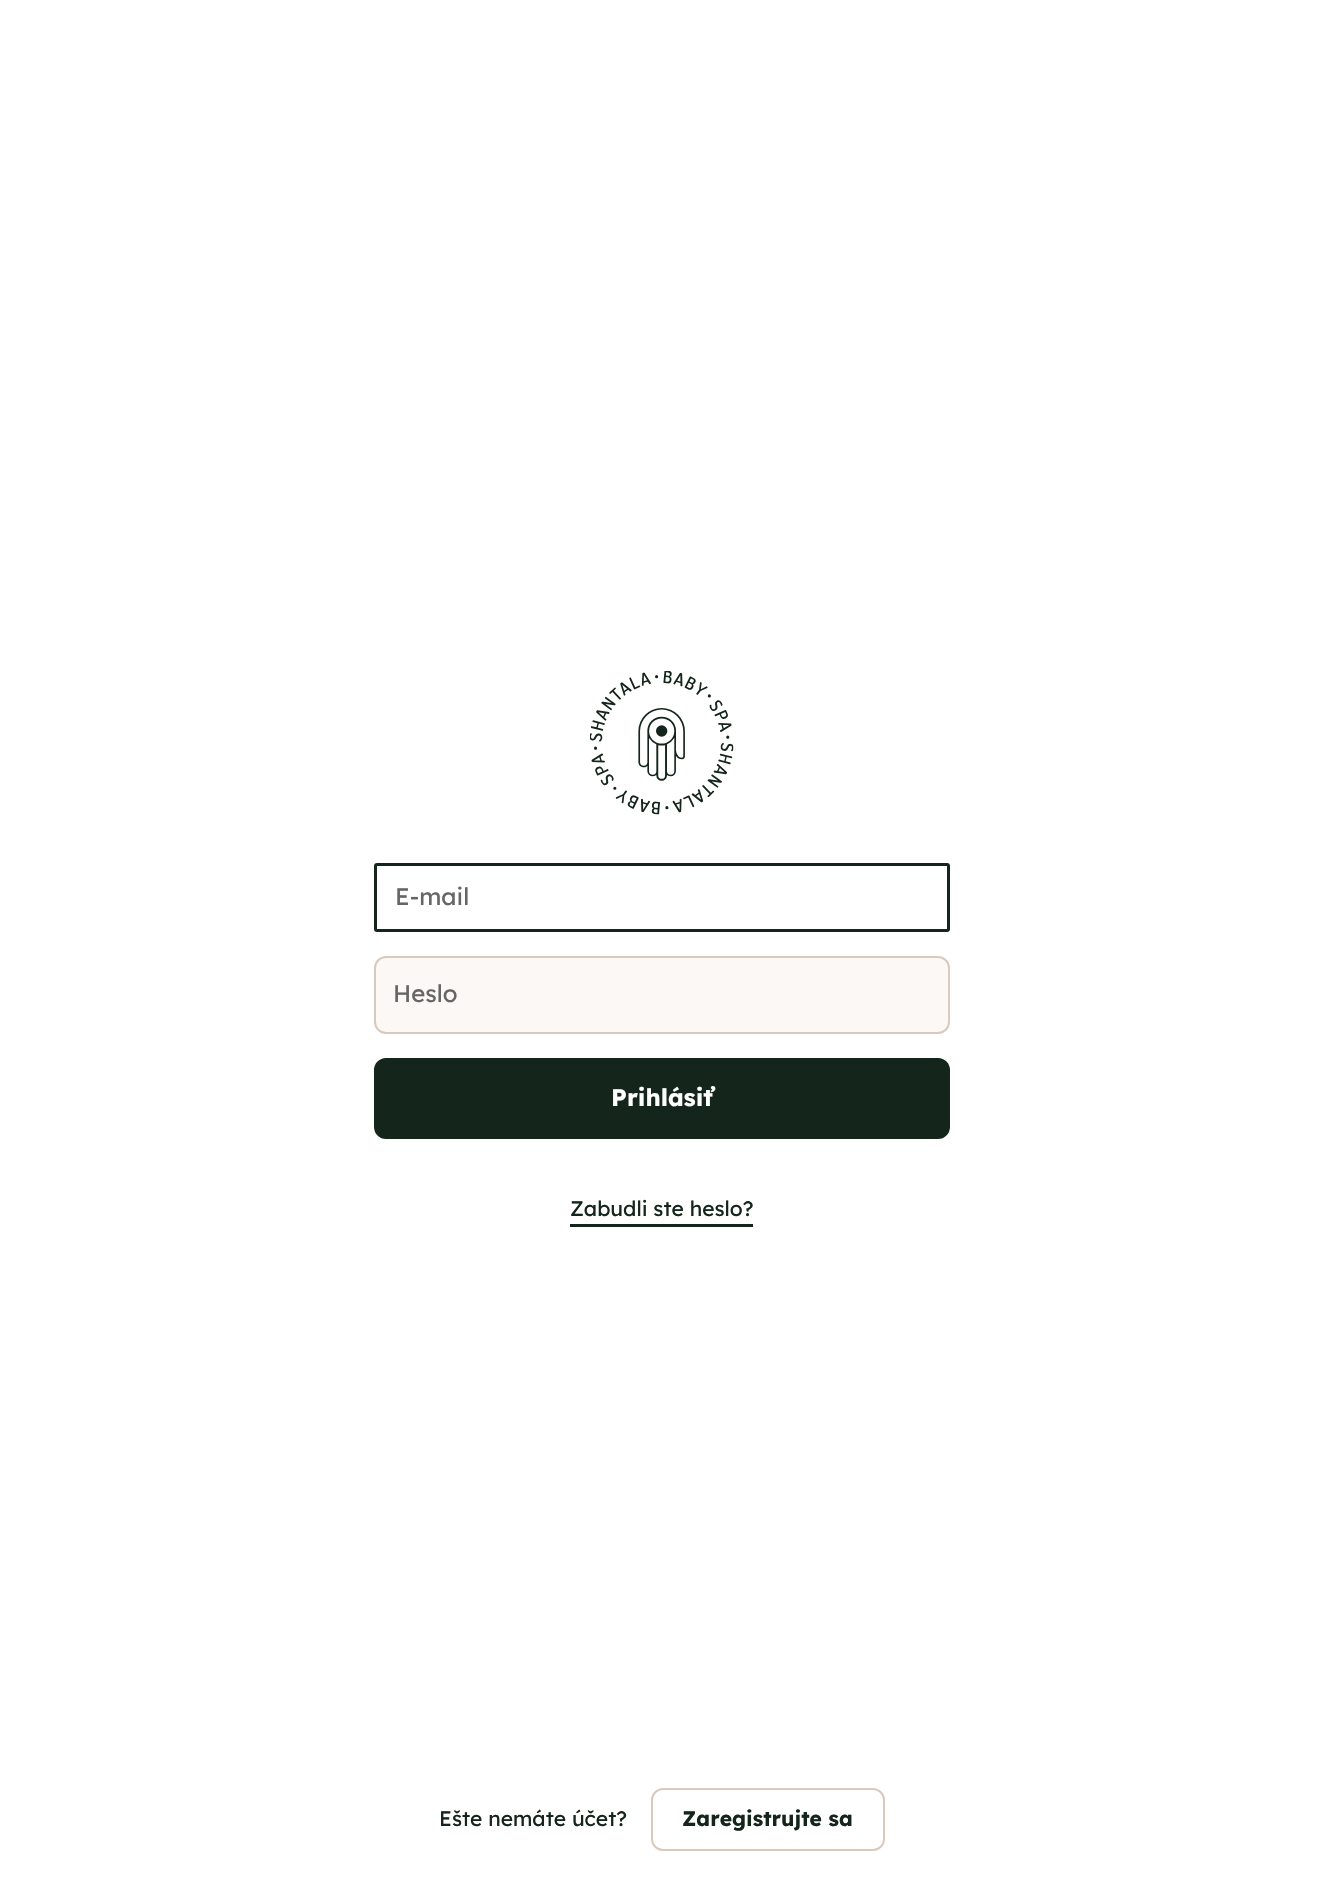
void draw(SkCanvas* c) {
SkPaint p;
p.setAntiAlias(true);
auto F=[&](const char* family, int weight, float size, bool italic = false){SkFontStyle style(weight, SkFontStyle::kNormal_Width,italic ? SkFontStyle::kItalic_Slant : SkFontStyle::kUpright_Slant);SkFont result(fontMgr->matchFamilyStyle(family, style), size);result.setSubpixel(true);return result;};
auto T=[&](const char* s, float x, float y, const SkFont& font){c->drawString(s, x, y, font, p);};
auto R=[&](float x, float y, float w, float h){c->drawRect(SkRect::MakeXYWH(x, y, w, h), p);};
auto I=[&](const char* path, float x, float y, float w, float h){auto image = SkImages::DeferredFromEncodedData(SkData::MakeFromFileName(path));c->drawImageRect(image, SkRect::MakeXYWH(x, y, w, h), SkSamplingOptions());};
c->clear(0xffffffff);
I("1.png",590,671,144,144);
p.setStroke(true);
p.setStrokeWidth(3);
p.setColor(0xff14261b);
c->drawRoundRect(SkRect::MakeXYWH(375.5,864.5,573,66),1.5,1.5,p);
auto f1 = F("Lexend Deca",400,24);
p.setStroke(false);
p.setColor(0xff666666);
T("E-mail",395,905,f1);
p.setColor(0xfffcf8f6);
c->drawRoundRect(SkRect::MakeXYWH(375,957,574,76),11,11,p);
p.setStroke(true);
p.setStrokeWidth(2);
p.setColor(0xffdac9bd);
c->drawRoundRect(SkRect::MakeXYWH(375,957,574,76),11,11,p);
p.setStroke(false);
p.setColor(0xff666666);
T("Heslo",393,1002,f1);
p.setColor(0xff14261b);
c->drawRoundRect(SkRect::MakeXYWH(375,1059,574,79),11,11,p);
p.setStroke(true);
c->drawRoundRect(SkRect::MakeXYWH(375,1059,574,79),11,11,p);
auto f2 = F("Lexend Deca",700,24);
p.setStroke(false);
p.setColor(0xffffffff);
T("Prihlásiť",611,1106,f2);
p.setColor(0xff14261b);
R(570,1224,183,3);
auto f3 = F("Lexend Deca",400,21);
T("Zabudli ste heslo?",570,1216,f3);
T("Ešte nemáte účet?",439,1826,f3);
p.setStroke(true);
p.setColor(0xffdac9bd);
c->drawRoundRect(SkRect::MakeXYWH(652,1789,232,61),11,11,p);
auto f4 = F("Lexend Deca",700,21);
p.setStroke(false);
p.setColor(0xff14261b);
T("Zaregistrujte sa",682,1826,f4);
}
